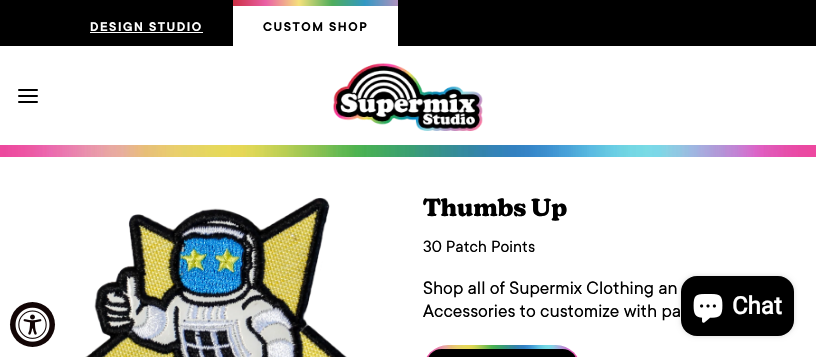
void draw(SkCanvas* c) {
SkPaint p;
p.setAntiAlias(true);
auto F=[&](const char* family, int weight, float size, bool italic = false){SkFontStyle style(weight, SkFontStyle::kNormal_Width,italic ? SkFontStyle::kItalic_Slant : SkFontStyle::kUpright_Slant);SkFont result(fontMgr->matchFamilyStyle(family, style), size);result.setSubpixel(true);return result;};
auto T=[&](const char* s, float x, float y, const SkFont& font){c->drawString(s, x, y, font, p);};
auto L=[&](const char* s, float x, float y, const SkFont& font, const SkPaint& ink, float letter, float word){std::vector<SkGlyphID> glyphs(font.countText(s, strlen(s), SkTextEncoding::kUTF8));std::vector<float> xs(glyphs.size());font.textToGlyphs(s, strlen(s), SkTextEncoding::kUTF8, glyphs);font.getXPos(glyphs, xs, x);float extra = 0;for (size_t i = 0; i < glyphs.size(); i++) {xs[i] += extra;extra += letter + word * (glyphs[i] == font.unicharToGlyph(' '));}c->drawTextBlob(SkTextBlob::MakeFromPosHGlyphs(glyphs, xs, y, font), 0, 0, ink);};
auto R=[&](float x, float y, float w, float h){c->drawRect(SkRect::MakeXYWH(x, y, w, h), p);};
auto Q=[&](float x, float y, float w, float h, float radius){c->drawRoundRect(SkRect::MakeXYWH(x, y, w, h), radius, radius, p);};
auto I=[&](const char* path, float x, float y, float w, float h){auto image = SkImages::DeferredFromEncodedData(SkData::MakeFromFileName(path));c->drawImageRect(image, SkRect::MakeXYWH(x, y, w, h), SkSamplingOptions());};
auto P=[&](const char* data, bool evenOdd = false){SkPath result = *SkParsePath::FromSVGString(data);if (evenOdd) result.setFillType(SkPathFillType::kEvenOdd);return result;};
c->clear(0xffffffff);
p.setColor(0xff130606);
c->drawCircle(32.5,324.5,22.5,p);
I("1.png",15,307,35,35);
p.setColor(0xff000000);
R(0,0,816,46);
auto f1 = F("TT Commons",600,14);
p.setColor(0xffffffff);
L("DESIGN STUDIO",90,31,f1,p,1.5,0);
R(90,32,113,1);
R(233,6,165,40);
{
const SkColor colors[] = {0xffcc3045,0xffea60a5,0xfff5e17c,0xff4fad5b,0xff3298c4,0xffaf91bd};
const float stops[] = {0,.2,.4,.6,.8,1};
const SkPoint ends[] = {{233,3}, {398,3}};
p.setShader(SkGradientShader::MakeLinear(ends, colors, stops, 6, SkTileMode::kClamp));
p.setAlpha(255);
}
R(233,0,165,6);
p.setShader(nullptr);
p.setColor(0xff000000);
L("CUSTOM SHOP",263,31,f1,p,1.5,0);
p.setStroke(true);
p.setStrokeWidth(2);
p.setStrokeCap(SkPaint::kRound_Cap);
p.setStrokeJoin(SkPaint::kRound_Join);
c->drawPath(P("M19 96h18m-18-6h18m-18 12h18"),p);
I("2.png",333,63,150,68);
I("3.png",0,145,816,12);
I("4.png",85,197,262,160);
auto f2 = F("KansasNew",700,24);
p.setStroke(false);
T("Thumbs Up",423,216,f2);
auto f3 = F("TT Commons",400,18);
T("30 Patch Points",423,252,f3);
auto f4 = F("TT Commons",400,20);
T("Shop all of Supermix Clothing an",423,294,f4);
T("Accessories to customize with pa",423,317,f4);
I("5.png",426,345,152,12);
Q(427,349,150,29,21);
p.setColor(0x26000000);
p.setMaskFilter(SkMaskFilter::MakeBlur(kNormal_SkBlurStyle, 2.5));
c->drawRoundRect(SkRect::MakeXYWH(681,276,113,60),16,16,p);
p.setMaskFilter(nullptr);
p.setColor(0xff000000);
Q(681,276,113,60,16);
I("6.png",693,294,30,29);
auto f5 = F("Roboto",700,24);
p.setColor(0xffffffff);
T("Chat",732,314,f5);
}
